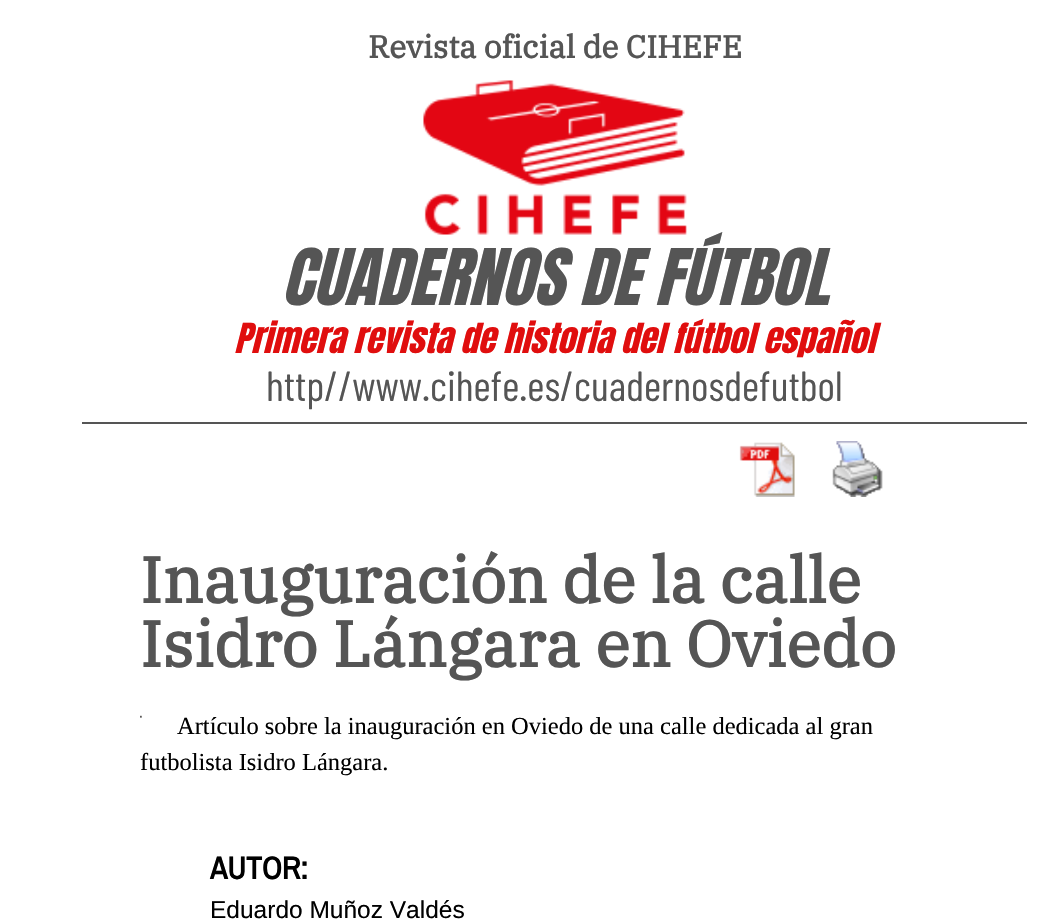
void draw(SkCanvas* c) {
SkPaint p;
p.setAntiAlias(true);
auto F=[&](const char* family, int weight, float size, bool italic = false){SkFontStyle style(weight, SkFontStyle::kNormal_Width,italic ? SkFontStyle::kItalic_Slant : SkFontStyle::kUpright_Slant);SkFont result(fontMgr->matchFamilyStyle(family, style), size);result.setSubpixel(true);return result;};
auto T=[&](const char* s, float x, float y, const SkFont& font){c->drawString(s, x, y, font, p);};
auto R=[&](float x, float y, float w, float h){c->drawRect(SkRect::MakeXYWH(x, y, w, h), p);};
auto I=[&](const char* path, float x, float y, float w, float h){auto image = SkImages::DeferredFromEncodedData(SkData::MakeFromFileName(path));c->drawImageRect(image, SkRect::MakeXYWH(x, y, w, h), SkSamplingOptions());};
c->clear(0xffffffff);
p.setColor(0xff555555);
R(82,422,945,2);
auto f1 = F("IBM Plex Serif",700,31.5);
T("Revista oficial de CIHEFE",368,58,f1);
auto f2 = F("Anton",400,66.25,true);
T("CUADERNOS DE FÚTBOL",281,305,f2);
I("1.png",423,80,264,155);
auto f3 = F("Anton",400,35.25,true);
p.setColor(0xffe00e0e);
T("Primera revista de historia del fútbol español",234,353,f3);
auto f4 = F("Barlow Condensed",400,42);
p.setColor(0xff555555);
T("http//www.cihefe.es/cuadernosdefutbol",266,401,f4);
I("2.png",739,442,56,55);
I("3.png",832,441,51,56);
auto f5 = F("IBM Plex Serif",700,64.25);
T("Inauguración de la calle",140,603,f5);
T("Isidro Lángara en Oviedo",140,667,f5);
I("4.png",140,715,2,3);
auto f6 = F("Liberation Serif",400,24.5);
p.setColor(0xff000000);
T("Artículo sobre la inauguración en Oviedo de una calle dedicada al gran",177,734,f6);
T("futbolista Isidro Lángara.",140,770,f6);
auto f7 = F("Archivo Narrow",700,31.5);
T("AUTOR:",210,879,f7);
auto f8 = F("Liberation Sans",400,24.5);
T("Eduardo Muñoz Valdés",210,918,f8);
}
